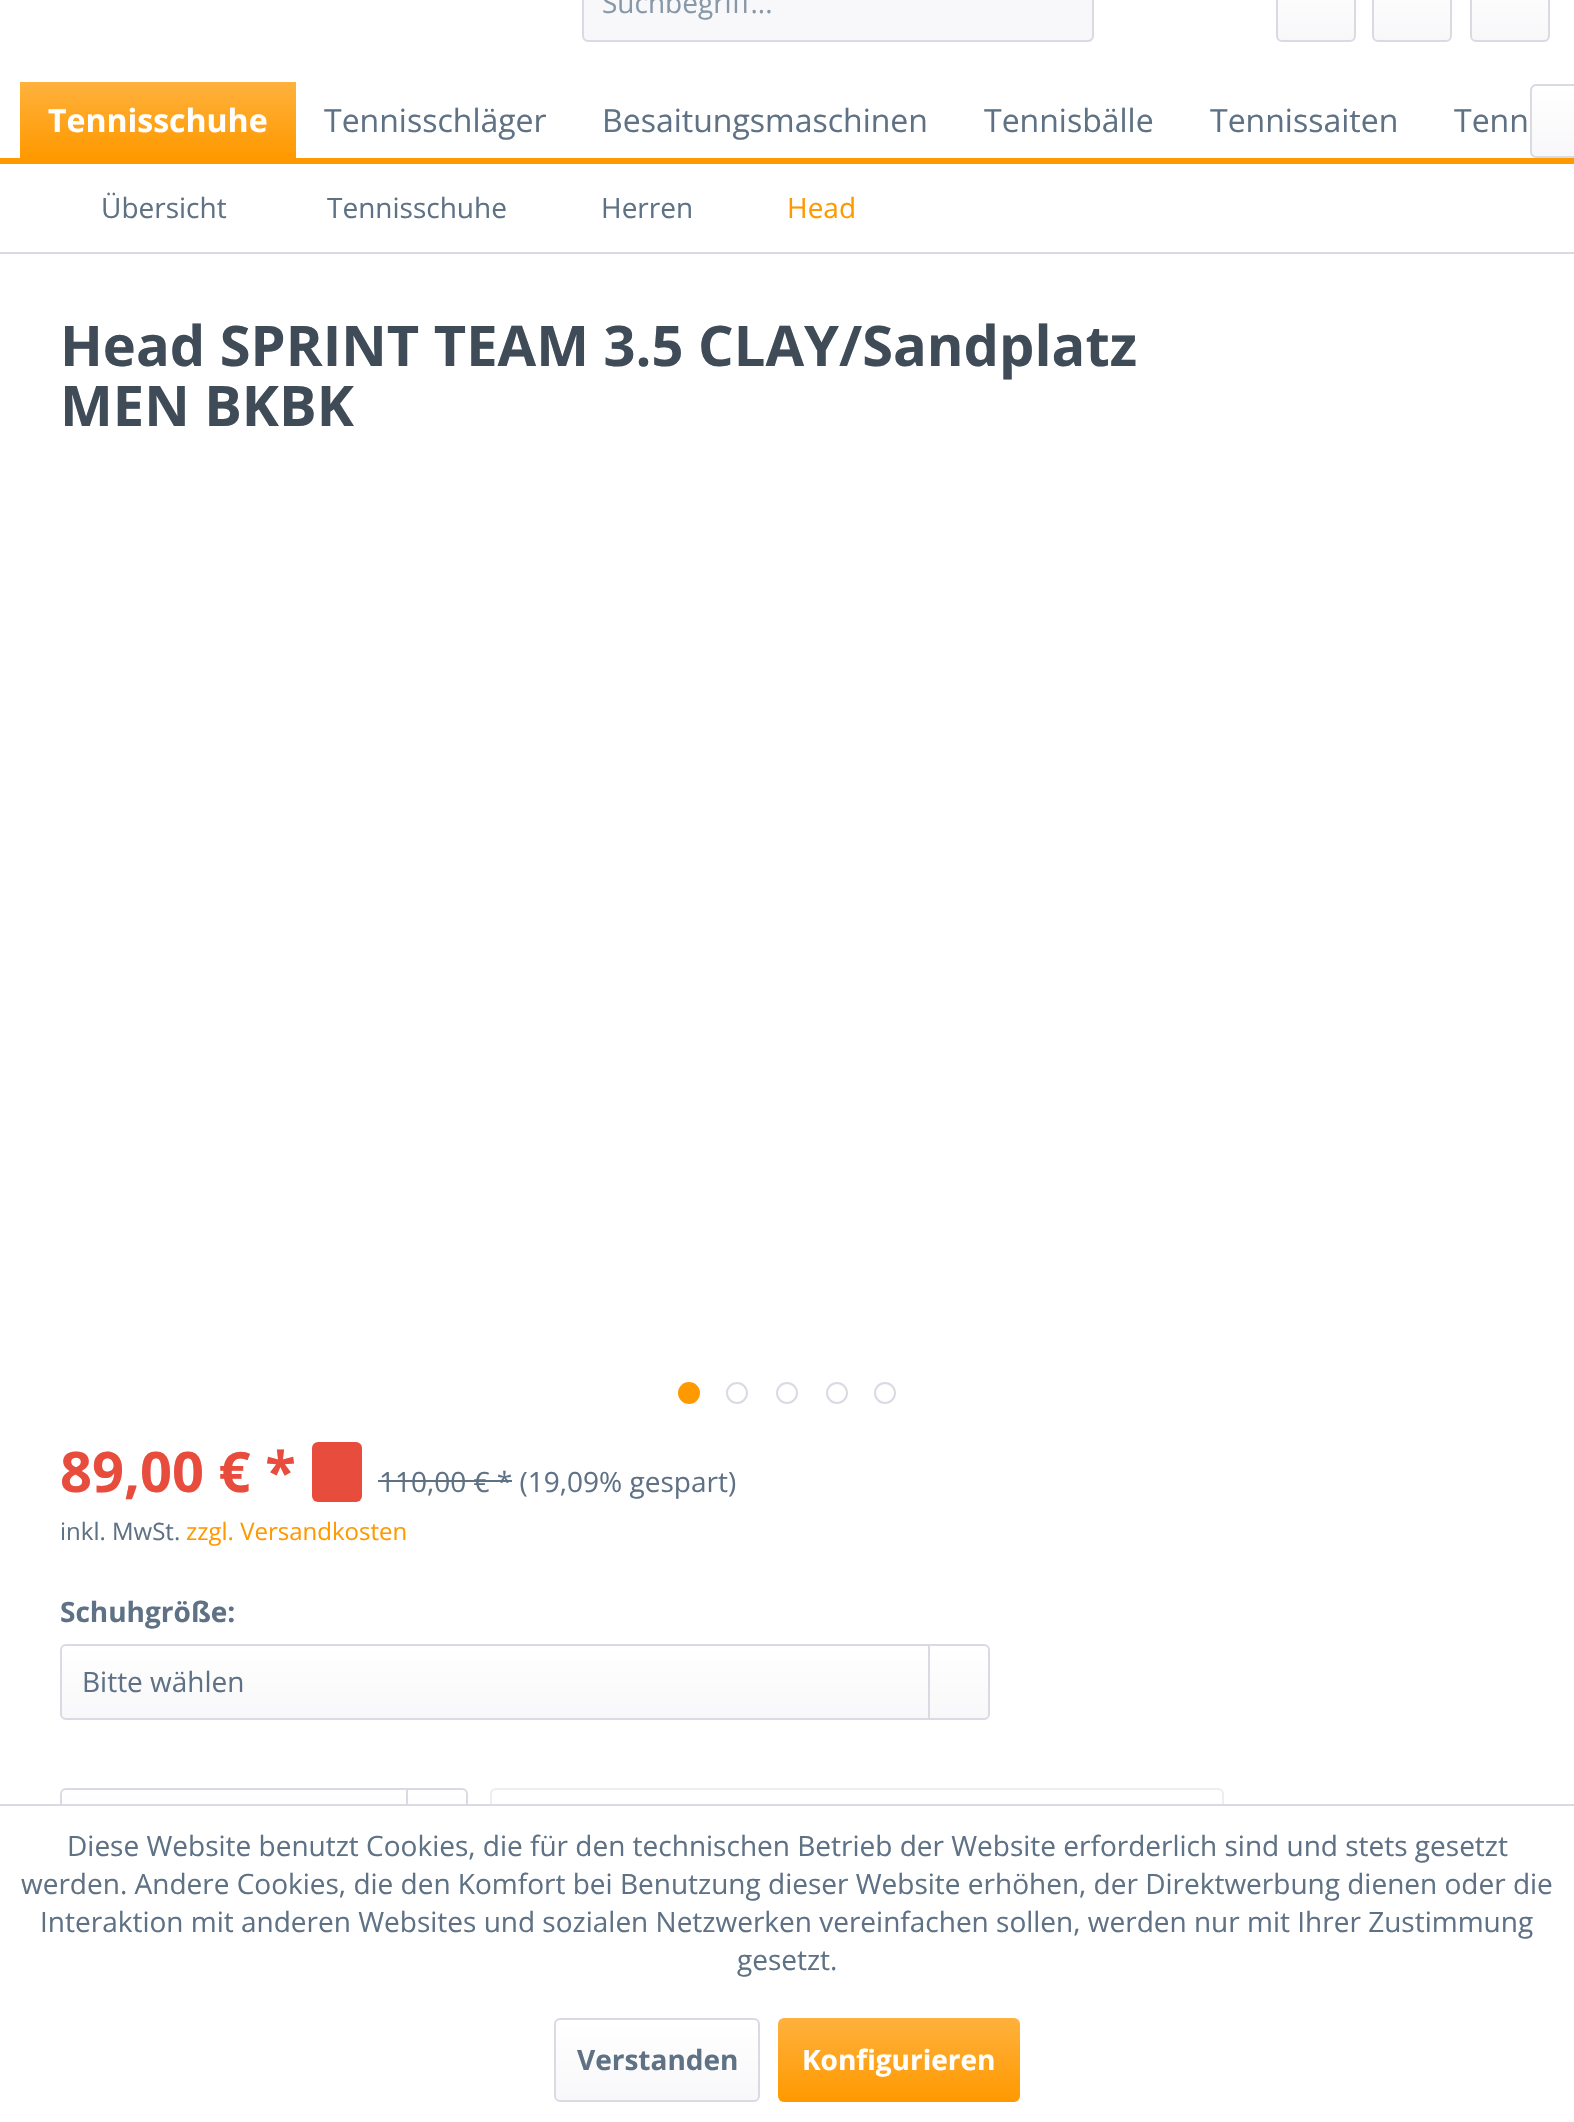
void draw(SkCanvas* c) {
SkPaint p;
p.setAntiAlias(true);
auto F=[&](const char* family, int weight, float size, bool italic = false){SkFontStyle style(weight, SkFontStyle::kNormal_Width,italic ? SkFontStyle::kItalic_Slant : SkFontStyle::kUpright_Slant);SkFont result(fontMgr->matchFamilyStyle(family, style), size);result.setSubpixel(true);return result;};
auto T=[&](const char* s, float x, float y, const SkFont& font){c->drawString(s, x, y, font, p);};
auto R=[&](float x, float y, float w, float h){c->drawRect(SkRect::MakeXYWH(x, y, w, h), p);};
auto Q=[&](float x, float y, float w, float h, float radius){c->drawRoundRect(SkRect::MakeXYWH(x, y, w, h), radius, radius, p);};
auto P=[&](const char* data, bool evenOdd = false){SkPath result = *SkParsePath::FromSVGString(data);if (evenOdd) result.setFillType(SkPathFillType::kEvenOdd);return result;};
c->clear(0xffffffff);
p.setColor(0xfff8f8fa);
Q(582,-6,512,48,6);
p.setStroke(true);
p.setStrokeWidth(2);
p.setColor(0xffdadae5);
c->drawPath(P("M1091.5-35.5c1 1 1.5 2 1.5 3.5v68c0 1.5-.5 2.5-1.5 3.5c-1 1-2 1.5-3.5 1.5h-500c-1.5 0-2.5-.5-3.5-1.5c-1-1-1.5-2-1.5-3.5v-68c0-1.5 .5-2.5 1.5-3.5"),p);
auto f1 = F("Open Sans",400,28);
p.setStroke(false);
p.setColor(0xff8798a9);
T("Suchbegriff...",602,13,f1);
{
const SkColor colors[] = {0xffffffff,0xfff8f8fa};
const float stops[] = {0,1};
const SkPoint ends[] = {{1316,-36}, {1316,40}};
p.setShader(SkGradientShader::MakeLinear(ends, colors, stops, 2, SkTileMode::kClamp));
p.setAlpha(255);
}
Q(1278,-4,76,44,4);
p.setStroke(true);
p.setShader(nullptr);
p.setColor(0xffdadae5);
c->drawRoundRect(SkRect::MakeXYWH(1277,-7,78,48),5,5,p);
p.setStroke(false);
{
const SkColor colors[] = {0xffffffff,0xfff8f8fa};
const float stops[] = {0,1};
const SkPoint ends[] = {{1412,-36}, {1412,40}};
p.setShader(SkGradientShader::MakeLinear(ends, colors, stops, 2, SkTileMode::kClamp));
p.setAlpha(255);
}
Q(1374,-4,76,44,4);
p.setStroke(true);
p.setShader(nullptr);
p.setColor(0xffdadae5);
c->drawRoundRect(SkRect::MakeXYWH(1373,-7,78,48),5,5,p);
p.setStroke(false);
{
const SkColor colors[] = {0xffffffff,0xfff8f8fa};
const float stops[] = {0,1};
const SkPoint ends[] = {{1510,-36}, {1510,40}};
p.setShader(SkGradientShader::MakeLinear(ends, colors, stops, 2, SkTileMode::kClamp));
p.setAlpha(255);
}
Q(1472,-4,76,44,4);
p.setStroke(true);
p.setShader(nullptr);
p.setColor(0xffdadae5);
c->drawRoundRect(SkRect::MakeXYWH(1471,-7,78,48),5,5,p);
p.setStroke(false);
p.setColor(0xffff9900);
R(0,158,1574,6);
{
const SkColor colors[] = {0xffffb13d,0xffff9900};
const float stops[] = {0,1};
const SkPoint ends[] = {{158,82}, {158,158}};
p.setShader(SkGradientShader::MakeLinear(ends, colors, stops, 2, SkTileMode::kClamp));
p.setAlpha(255);
}
R(20,82,276,76);
auto f2 = F("Open Sans",700,32);
p.setShader(nullptr);
p.setColor(0xffffffff);
T("Tennisschuhe",48,132,f2);
auto f3 = F("Open Sans",400,32);
p.setColor(0xff5f7285);
T("Tennisschläger",324,132,f3);
T("Besaitungsmaschinen",602,132,f3);
T("Tennisbälle",984,132,f3);
T("Tennissaiten",1210,132,f3);
T("Tenn",1454,132,f3);
{
const SkColor colors[] = {0xffffffff,0xfff8f8fa};
const float stops[] = {0,1};
const SkPoint ends[] = {{1553,86}, {1553,156}};
p.setShader(SkGradientShader::MakeLinear(ends, colors, stops, 2, SkTileMode::kClamp));
p.setAlpha(255);
}
c->drawPath(P("M1536 86h38v70h-38c-2 0-4-2-4-4v-62c0-2 2-4 4-4z"),p);
p.setShader(nullptr);
p.setColor(0xffdadae5);
c->drawPath(P("M1536 84h38v74h-38c-3 0-6-3-6-6v-62c0-3 3-6 6-6zm0 2h38v70h-38c-2 0-4-2-4-4v-62c0-2 2-4 4-4z",true),p);
R(0,252,1574,2);
p.setColor(0xff5f7285);
T("Übersicht",101,218,f1);
T("Tennisschuhe",327,218,f1);
T("Herren",601,218,f1);
p.setColor(0xffff9900);
T("Head",787,218,f1);
auto f4 = F("Open Sans",700,56);
p.setColor(0xff3f4c58);
T("Head SPRINT TEAM 3.5 CLAY/Sandplatz",60,366,f4);
T("MEN BKBK",60,426,f4);
p.setColor(0xffff9900);
c->drawCircle(689,1393,10,p);
p.setStroke(true);
c->drawCircle(689,1393,10,p);
p.setColor(0xffdadae5);
c->drawCircle(737,1393,10,p);
c->drawCircle(787,1393,10,p);
c->drawCircle(837,1393,10,p);
c->drawCircle(885,1393,10,p);
p.setStroke(false);
p.setColor(0xffe74c3c);
T("89,00 € *",60,1492,f4);
Q(312,1442,50,60,6);
p.setColor(0xff5f7285);
T("110,00 € * (19,09% gespart)",379,1492,f1);
R(378,1480,134,2);
auto f5 = F("Open Sans",400,24);
T("inkl. MwSt.",60,1540,f5);
p.setColor(0xffff9900);
T("zzgl. Versandkosten",186,1540,f5);
auto f6 = F("Open Sans",700,28);
p.setColor(0xff5f7285);
T("Schuhgröße:",60,1622,f6);
{
const SkColor colors[] = {0xffffffff,0xfff8f8fa};
const float stops[] = {0,1};
const SkPoint ends[] = {{525,1646}, {525,1718}};
p.setShader(SkGradientShader::MakeLinear(ends, colors, stops, 2, SkTileMode::kClamp));
p.setAlpha(255);
}
Q(62,1646,926,72,4);
p.setStroke(true);
p.setShader(nullptr);
p.setColor(0xffdadae5);
c->drawRoundRect(SkRect::MakeXYWH(61,1645,928,74),5,5,p);
p.setStroke(false);
p.setColor(0xff5f7285);
T("Bitte wählen",82,1692,f1);
p.setColor(0xffdadae5);
R(928,1646,2,72);
{
const SkColor colors[] = {0xffffffff,0xfff8f8fa};
const float stops[] = {0,1};
const SkPoint ends[] = {{264,1790}, {264,1870}};
p.setShader(SkGradientShader::MakeLinear(ends, colors, stops, 2, SkTileMode::kClamp));
p.setAlpha(255);
}
Q(62,1790,404,80,4);
p.setStroke(true);
p.setShader(nullptr);
p.setColor(0xffdadae5);
c->drawRoundRect(SkRect::MakeXYWH(61,1789,406,82),5,5,p);
p.setStroke(false);
R(406,1790,2,14);
{
const SkColor colors[] = {0xffffffff,0xfffcfcfd};
const float stops[] = {0,1};
const SkPoint ends[] = {{857,1790}, {857,1870}};
p.setShader(SkGradientShader::MakeLinear(ends, colors, stops, 2, SkTileMode::kClamp));
p.setAlpha(255);
}
Q(492,1790,730,80,4);
p.setStroke(true);
p.setShader(nullptr);
p.setColor(0xffededf2);
c->drawRoundRect(SkRect::MakeXYWH(491,1789,732,82),5,5,p);
p.setStroke(false);
p.setColor(0xffffffff);
R(60,1806,1164,66);
p.setColor(0xffdadae5);
R(0,1804,1574,2);
p.setColor(0xff5f7285);
T("Diese Website benutzt Cookies, die für den technischen Betrieb der Website erforderlich sind und stets gesetzt",67,1856,f1);
T("werden. Andere Cookies, die den Komfort bei Benutzung dieser Website erhöhen, der Direktwerbung dienen oder die",21,1894,f1);
T("Interaktion mit anderen Websites und sozialen Netzwerken vereinfachen sollen, werden nur mit Ihrer Zustimmung",40,1932,f1);
T("gesetzt.",737,1970,f1);
{
const SkColor colors[] = {0xffffffff,0xfff8f8fa};
const float stops[] = {0,1};
const SkPoint ends[] = {{657,2020}, {657,2100}};
p.setShader(SkGradientShader::MakeLinear(ends, colors, stops, 2, SkTileMode::kClamp));
p.setAlpha(255);
}
Q(556,2020,202,80,4);
p.setStroke(true);
p.setShader(nullptr);
p.setColor(0xffdadae5);
c->drawRoundRect(SkRect::MakeXYWH(555,2019,204,82),5,5,p);
p.setStroke(false);
p.setColor(0xff5f7285);
T("Verstanden",577,2070,f6);
{
const SkColor colors[] = {0xffffb13d,0xffff9900};
const float stops[] = {0,1};
const SkPoint ends[] = {{899,2018}, {899,2102}};
p.setShader(SkGradientShader::MakeLinear(ends, colors, stops, 2, SkTileMode::kClamp));
p.setAlpha(255);
}
Q(778,2018,242,84,6);
p.setShader(nullptr);
p.setColor(0xffffffff);
T("Konfigurieren",802,2070,f6);
}
